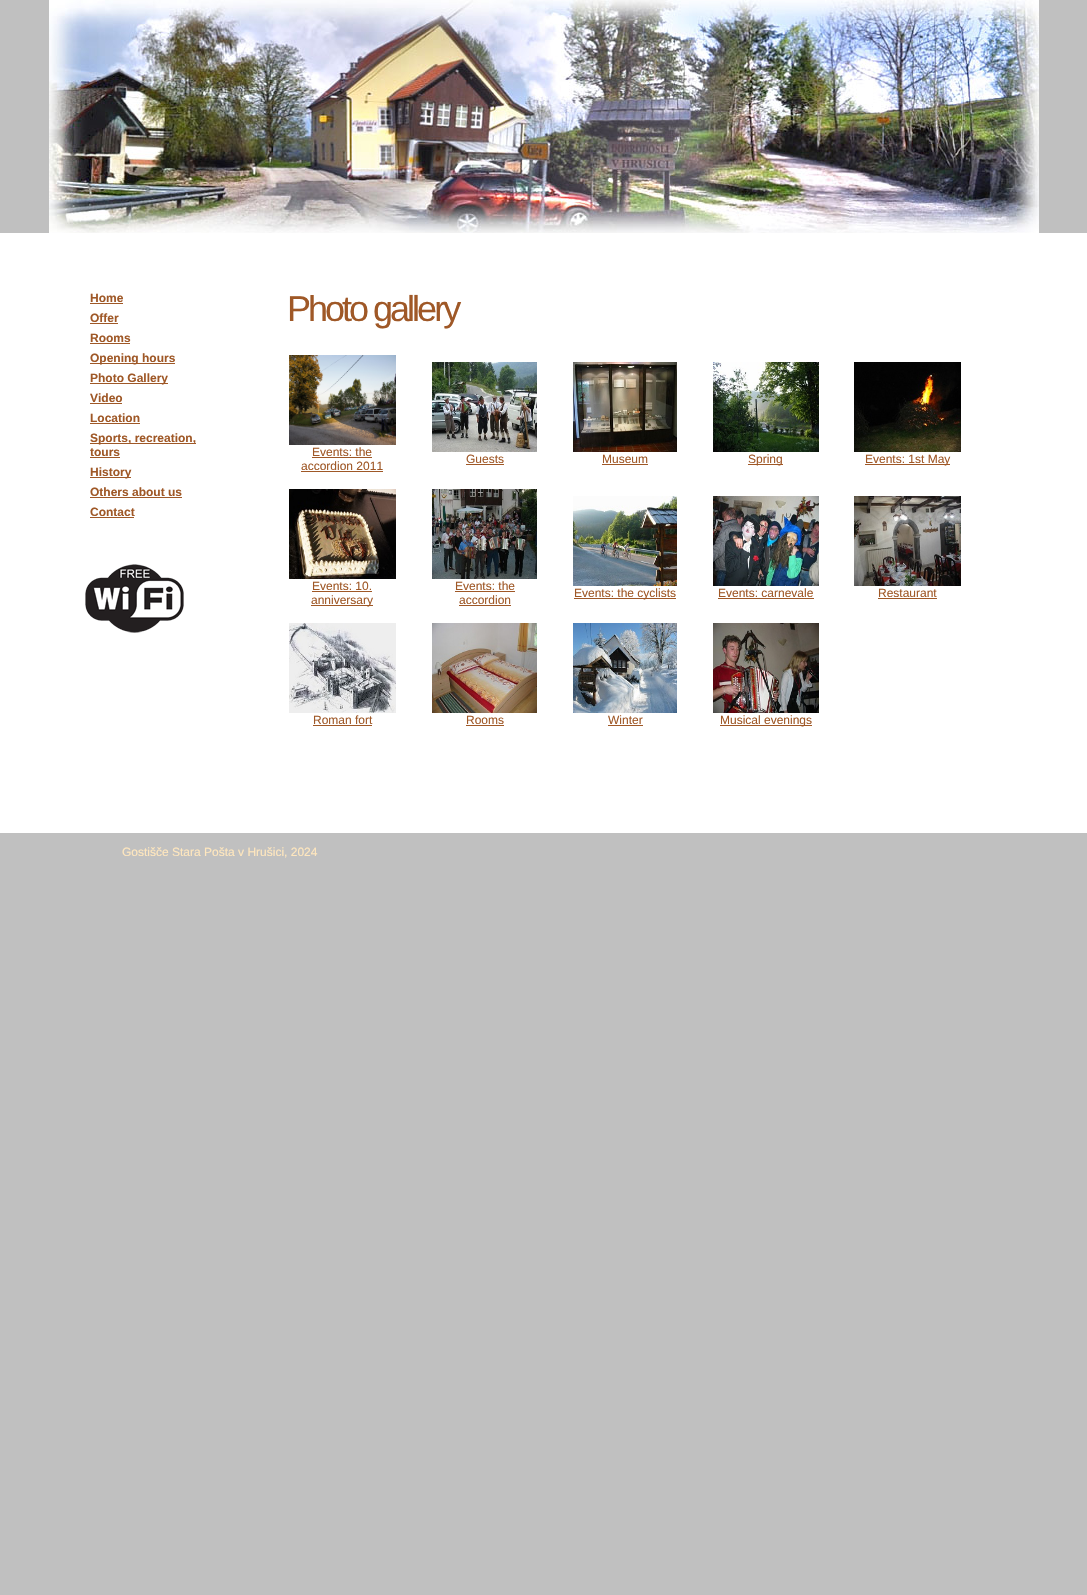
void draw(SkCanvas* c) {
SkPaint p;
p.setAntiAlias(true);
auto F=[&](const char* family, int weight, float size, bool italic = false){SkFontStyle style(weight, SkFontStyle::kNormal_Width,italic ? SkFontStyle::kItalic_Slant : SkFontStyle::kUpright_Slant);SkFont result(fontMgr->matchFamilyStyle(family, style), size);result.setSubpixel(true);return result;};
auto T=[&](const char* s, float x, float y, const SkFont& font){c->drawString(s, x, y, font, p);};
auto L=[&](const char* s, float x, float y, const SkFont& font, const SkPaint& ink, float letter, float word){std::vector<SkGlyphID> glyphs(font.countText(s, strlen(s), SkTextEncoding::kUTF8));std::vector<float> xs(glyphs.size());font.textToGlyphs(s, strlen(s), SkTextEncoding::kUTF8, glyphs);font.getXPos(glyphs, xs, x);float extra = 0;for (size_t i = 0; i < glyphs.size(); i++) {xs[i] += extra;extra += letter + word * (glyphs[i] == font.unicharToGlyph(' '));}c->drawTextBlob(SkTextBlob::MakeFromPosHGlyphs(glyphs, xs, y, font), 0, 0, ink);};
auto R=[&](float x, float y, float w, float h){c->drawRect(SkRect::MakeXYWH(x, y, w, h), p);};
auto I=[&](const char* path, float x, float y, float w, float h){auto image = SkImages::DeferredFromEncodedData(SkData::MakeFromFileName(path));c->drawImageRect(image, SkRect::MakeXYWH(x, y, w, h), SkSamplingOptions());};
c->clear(0xffc0c0c0);
I("1.png",49,0,990,233);
p.setColor(0xffffffff);
R(0,233,1087,600);
auto f1 = F("Liberation Sans",700,12);
p.setColor(0xff9f5827);
T("Home",90,302,f1);
R(90,303,33,1);
T("Offer",90,322,f1);
R(90,323,28,1);
T("Rooms",90,342,f1);
R(90,343,40,1);
R(90,363,85,1);
T("Opening hours",90,362,f1);
R(90,383,78,1);
T("Photo Gallery",90,382,f1);
T("Video",90,402,f1);
R(90,403,32,1);
T("Location",90,422,f1);
R(90,423,50,1);
R(90,443,106,1);
T("Sports, recreation,",90,442,f1);
T("tours",90,456,f1);
R(90,457,30,1);
R(90,477,41,1);
T("History",90,476,f1);
T("Others about us",90,496,f1);
R(90,497,92,1);
T("Contact",90,516,f1);
R(90,517,44,1);
I("2.png",85,564,99,69);
auto f2 = F("Liberation Sans",400,36);
L("Photo gallery",287,321,f2,p,-3,0);
I("3.png",289,355,107,90);
auto f3 = F("Liberation Sans",400,12);
T("Events: the",312,456,f3);
R(312,457,60,1);
T("accordion 2011",301,470,f3);
R(301,471,82,1);
I("4.png",432,362,105,90);
T("Guests",466,463,f3);
R(466,464,38,1);
I("5.png",573,362,104,90);
T("Museum",602,463,f3);
R(602,464,46,1);
I("6.png",713,362,106,90);
R(748,464,35,1);
T("Spring",748,463,f3);
I("7.png",854,362,107,90);
R(865,464,85,1);
T("Events: 1st May",865,463,f3);
I("8.png",289,489,107,90);
T("Events: 10.",312,590,f3);
R(312,591,60,1);
R(311,605,62,1);
T("anniversary",311,604,f3);
I("9.png",432,489,105,90);
T("Events: the",455,590,f3);
R(455,591,60,1);
T("accordion",459,604,f3);
R(459,605,52,1);
I("10.png",573,496,104,90);
R(574,598,102,1);
T("Events: the cyclists",574,597,f3);
I("11.png",713,496,106,90);
T("Events: carnevale",718,597,f3);
R(718,598,96,1);
I("12.png",854,496,107,90);
T("Restaurant",878,597,f3);
R(878,598,59,1);
I("13.png",289,623,107,90);
T("Roman fort",313,724,f3);
R(313,725,59,1);
I("14.png",432,623,105,90);
T("Rooms",466,724,f3);
R(466,725,38,1);
I("15.png",573,623,104,90);
T("Winter",608,724,f3);
R(608,725,35,1);
I("16.png",713,623,106,90);
R(720,725,92,1);
T("Musical evenings",720,724,f3);
p.setColor(0xffffe7be);
T("Gostišče Stara Pošta v Hrušici, 2024",122,856,f3);
}
